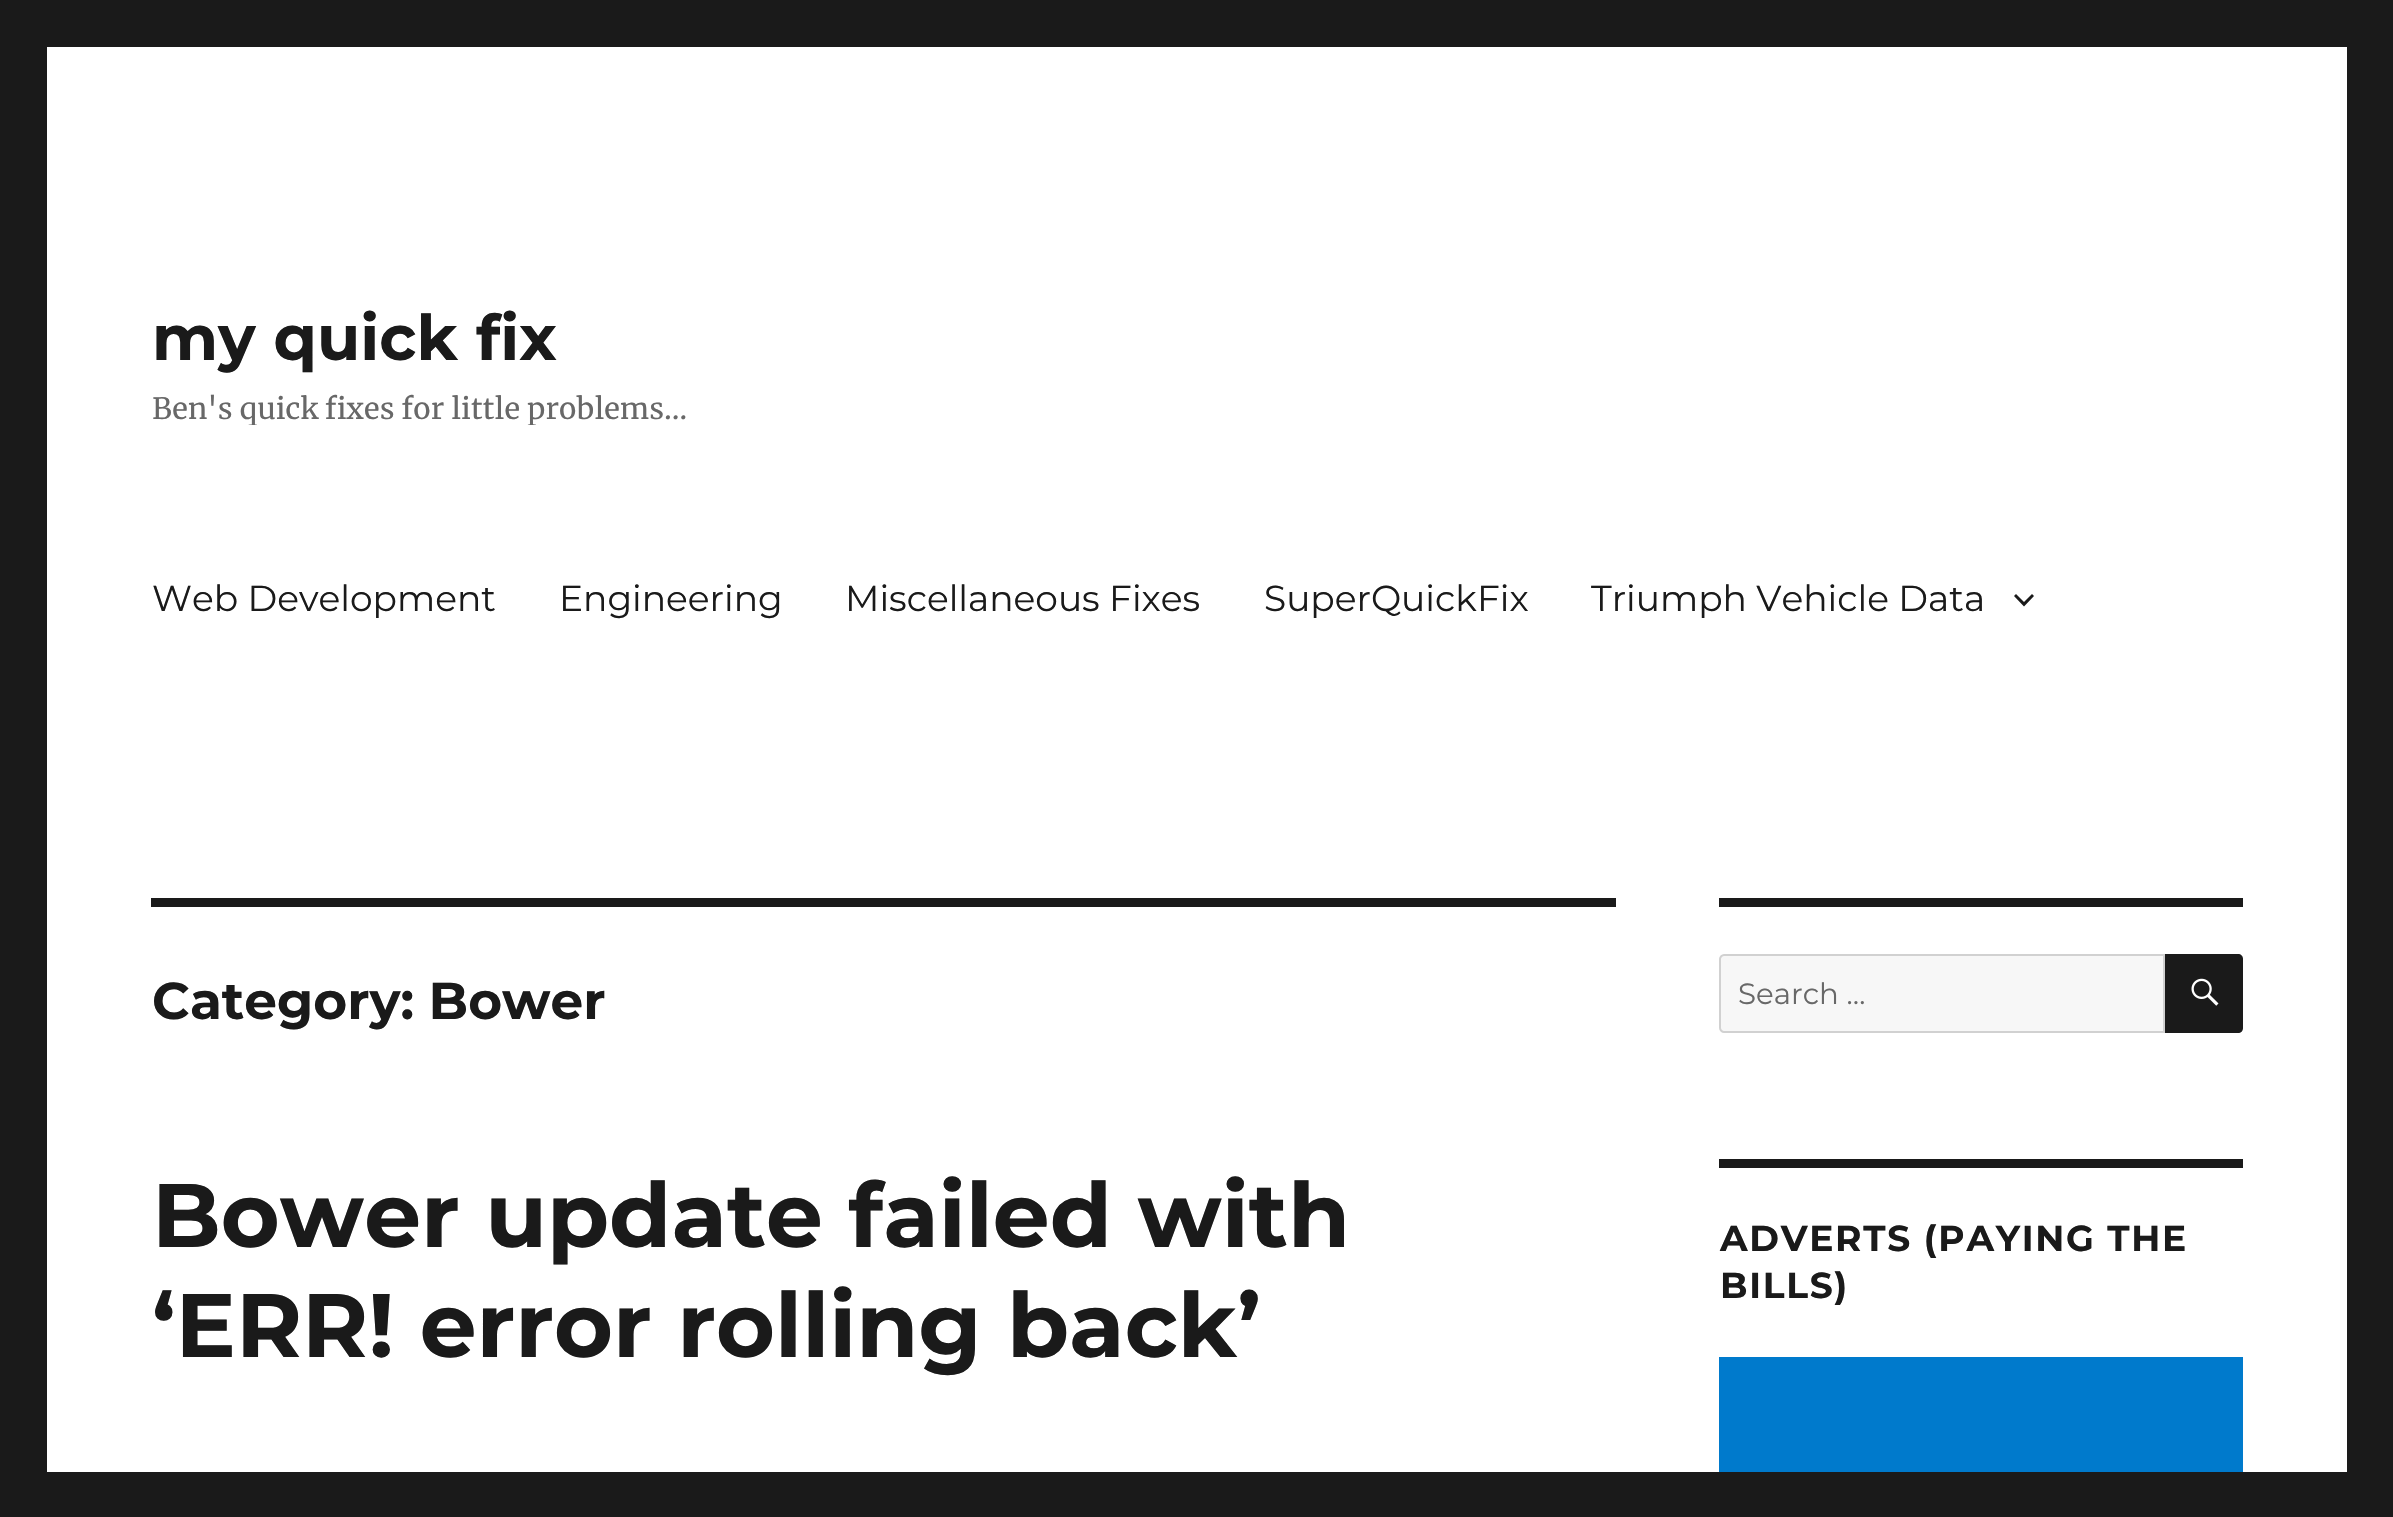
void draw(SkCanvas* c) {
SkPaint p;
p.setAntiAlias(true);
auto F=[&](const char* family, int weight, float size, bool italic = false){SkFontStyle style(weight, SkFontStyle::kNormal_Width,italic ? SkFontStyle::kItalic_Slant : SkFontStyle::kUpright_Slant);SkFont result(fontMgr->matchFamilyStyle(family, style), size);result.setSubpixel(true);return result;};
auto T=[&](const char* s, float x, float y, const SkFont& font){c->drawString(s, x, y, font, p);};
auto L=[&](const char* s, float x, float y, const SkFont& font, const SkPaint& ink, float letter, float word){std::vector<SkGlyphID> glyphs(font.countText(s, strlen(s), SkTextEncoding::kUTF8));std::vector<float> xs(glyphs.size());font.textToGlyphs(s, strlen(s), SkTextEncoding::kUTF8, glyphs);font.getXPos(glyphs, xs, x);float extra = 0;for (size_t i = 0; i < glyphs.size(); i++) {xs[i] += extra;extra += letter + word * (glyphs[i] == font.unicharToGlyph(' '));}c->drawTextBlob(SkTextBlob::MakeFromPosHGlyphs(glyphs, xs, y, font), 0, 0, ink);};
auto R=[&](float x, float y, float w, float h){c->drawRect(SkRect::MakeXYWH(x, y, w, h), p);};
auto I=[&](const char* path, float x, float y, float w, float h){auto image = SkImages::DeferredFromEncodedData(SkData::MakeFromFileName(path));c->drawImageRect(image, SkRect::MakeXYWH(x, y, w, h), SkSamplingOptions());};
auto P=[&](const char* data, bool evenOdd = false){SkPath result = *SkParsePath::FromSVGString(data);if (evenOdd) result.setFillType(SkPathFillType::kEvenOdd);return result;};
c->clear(0xff1a1a1a);
p.setColor(0xffffffff);
R(47,47,2300,1425);
auto f1 = F("Montserrat",100,63);
p.setColor(0xff1a1a1a);
T("my quick fix",152,360,f1);
c->save();
c->clipRect(SkRect::MakeXYWH(151,299,535,126));
auto f2 = F("Merriweather",400,29.25);
p.setColor(0xff686868);
T("Ben's quick fixes for little problems…",152,419,f2);
c->restore();
auto f3 = F("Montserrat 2",100,36);
p.setColor(0xff1a1a1a);
T("Web Development",152,611,f3);
T("Engineering",559,611,f3);
T("Miscellaneous Fixes",845,611,f3);
T("SuperQuickFix",1264,611,f3);
T("Triumph Vehicle Data",1591,611,f3);
c->drawPath(P("M2032 594l2 2l-10 10.5l-10-10.5l2-2l8 8z"),p);
R(151,898,1465,9);
auto f4 = F("Montserrat",100,51.75);
T("Category: Bower",152,1019,f4);
auto f5 = F("Montserrat",100,90);
T("Bower update failed with",152,1247,f5);
T("‘ERR! error rolling back’",152,1357,f5);
R(1719,898,524,9);
p.setColor(0xfff7f7f7);
c->drawPath(P("M1724 955h440v77h-440c-2 0-4-2-4-4v-69c0-2 2-4 4-4z"),p);
p.setStroke(true);
p.setStrokeWidth(2);
p.setColor(0xffd1d1d1);
c->drawPath(P("M1724 955h440v77h-440c-2 0-4-2-4-4v-69c0-2 2-4 4-4z"),p);
auto f6 = F("Montserrat 2",100,29.25);
p.setStroke(false);
p.setColor(0xff686868);
T("Search …",1738,1004,f6);
p.setColor(0xff1a1a1a);
c->drawPath(P("M2165 954h73c3 0 5 2 5 5v69c0 3-2 5-5 5h-73z"),p);
I("1.png",2191,978,28,28);
R(1719,1159,524,9);
auto f7 = F("Montserrat",100,36);
L("ADVERTS (PAYING THE",1720,1251,f7,p,1.7,0);
L("BILLS)",1720,1298,f7,p,1.7,0);
p.setColor(0xff007acc);
R(1719,1357,524,115);
}
